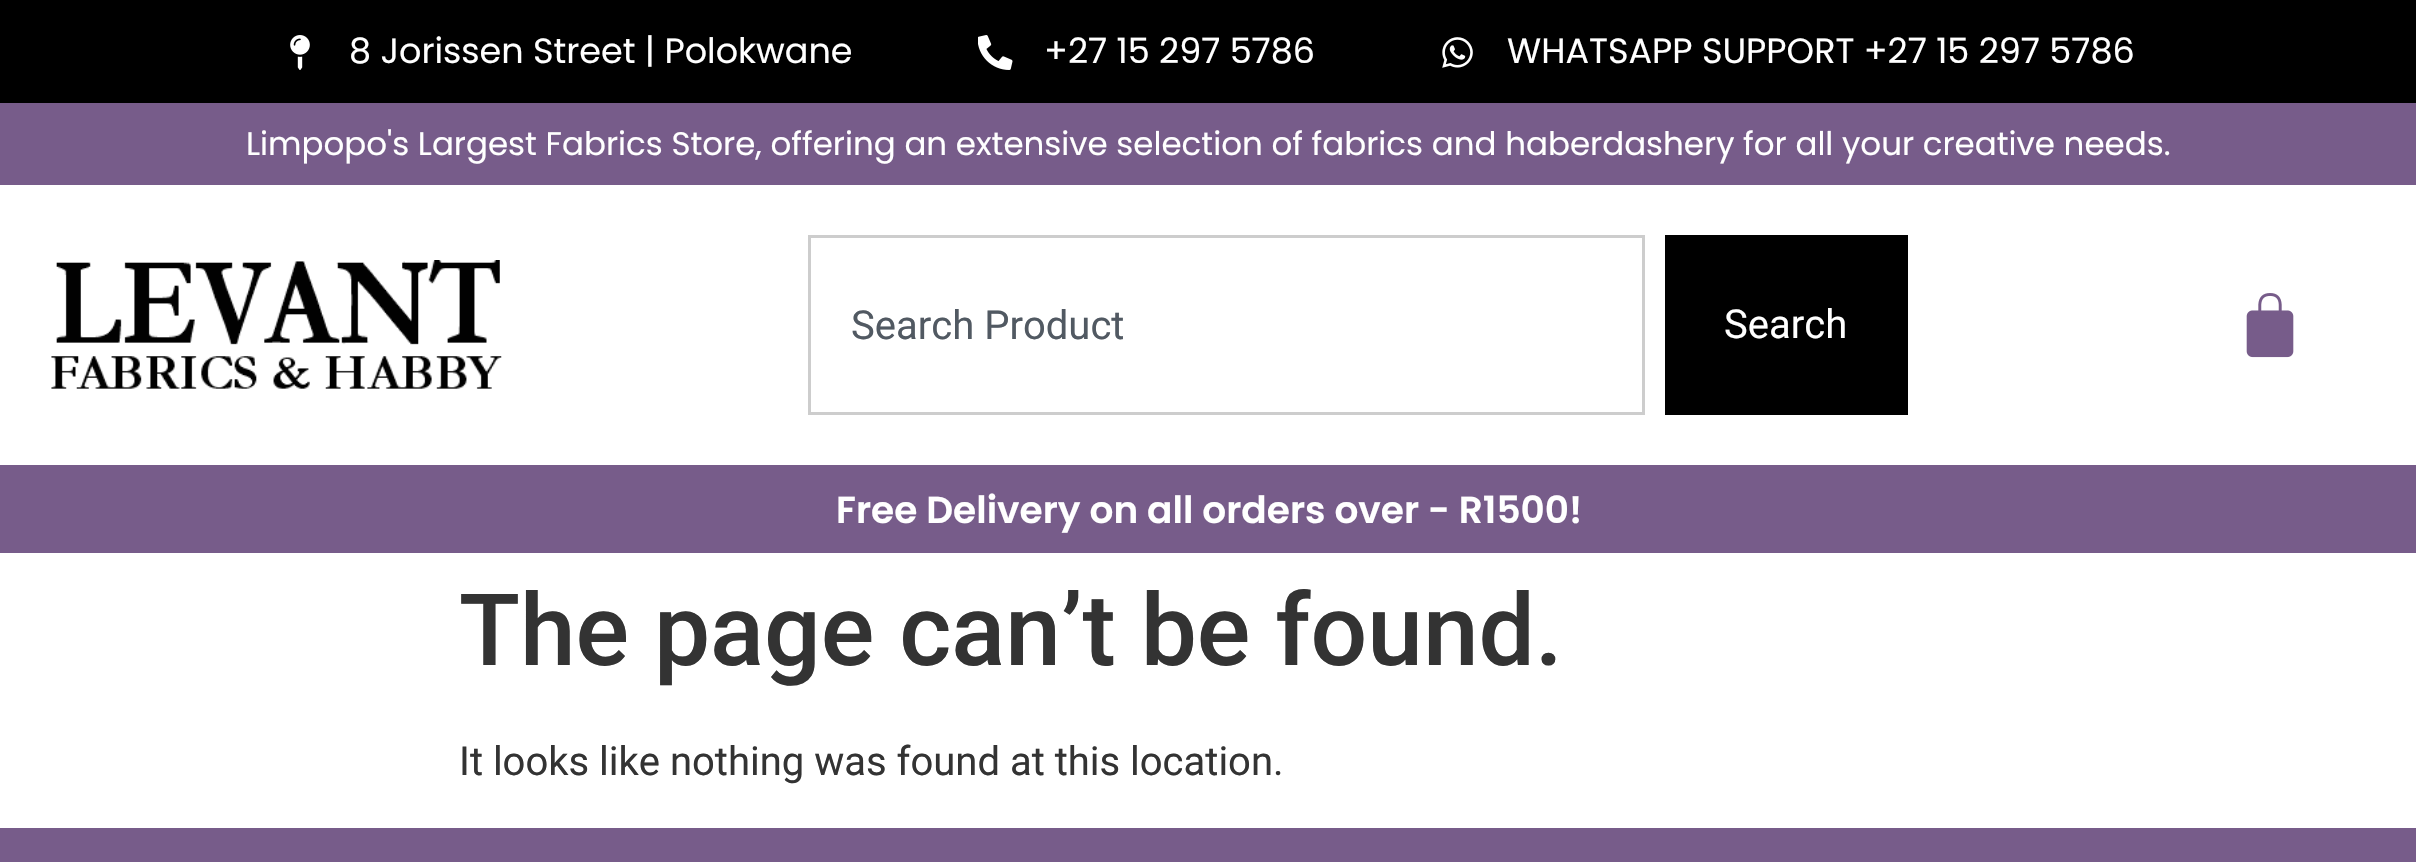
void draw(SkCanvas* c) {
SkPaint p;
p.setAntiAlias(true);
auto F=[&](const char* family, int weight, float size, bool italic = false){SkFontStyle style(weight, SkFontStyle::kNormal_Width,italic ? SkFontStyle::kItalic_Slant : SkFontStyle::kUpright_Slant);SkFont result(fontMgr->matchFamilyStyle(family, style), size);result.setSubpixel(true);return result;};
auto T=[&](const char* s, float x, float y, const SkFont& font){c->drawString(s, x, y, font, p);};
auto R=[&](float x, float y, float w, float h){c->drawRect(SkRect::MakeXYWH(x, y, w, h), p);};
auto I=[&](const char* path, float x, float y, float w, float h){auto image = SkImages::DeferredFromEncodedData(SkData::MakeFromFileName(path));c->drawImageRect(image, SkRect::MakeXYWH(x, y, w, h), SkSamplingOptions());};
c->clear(0xffffffff);
p.setColor(0xff000000);
R(0,0,2416,103);
I("1.png",290,35,20,35);
auto f1 = F("Poppins",400,35);
p.setColor(0xffffffff);
T("8 Jorissen Street | Polokwane",349,63,f1);
I("2.png",978,35,35,35);
T("+27 15 297 5786",1044,63,f1);
I("3.png",1442,37,31,31);
T("WHATSAPP SUPPORT +27 15 297 5786",1507,63,f1);
p.setColor(0xff775c8a);
R(0,103,2416,82);
auto f2 = F("Poppins",400,32.5);
p.setColor(0xffffffff);
T("Limpopo's Largest Fabrics Store, offering an extensive selection of fabrics and haberdashery for all your creative needs.",246,155,f2);
I("4.png",51,260,451,129);
p.setStroke(true);
p.setStrokeWidth(3);
p.setColor(0xffcdcdcd);
c->drawRect(SkRect::MakeXYWH(809.5,236.5,834,177),p);
auto f3 = F("Roboto",400,40);
p.setStroke(false);
p.setColor(0xff515962);
T("Search Product",851,339,f3);
p.setColor(0xff000000);
R(1665,235,243,180);
p.setColor(0xffffffff);
T("Search",1724,338,f3);
I("5.png",2246,293,48,65);
p.setColor(0xff775c8a);
R(0,465,2416,88);
auto f4 = F("Poppins",600,37.5);
p.setColor(0xffffffff);
T("Free Delivery on all orders over - R1500!",836,523,f4);
auto f5 = F("Roboto",500,100);
p.setColor(0xff333333);
T("The page can’t be found.",459,665,f5);
T("It looks like nothing was found at this location.",459,775,f3);
p.setColor(0xff775c8a);
R(0,828,2416,34);
}
